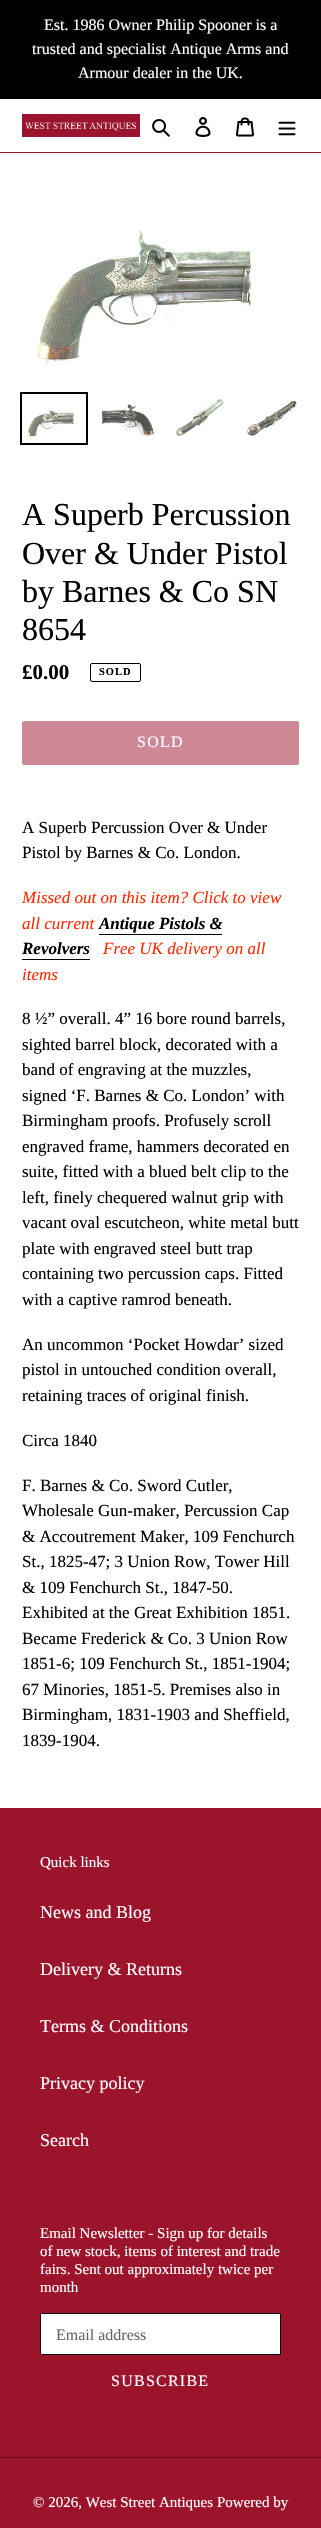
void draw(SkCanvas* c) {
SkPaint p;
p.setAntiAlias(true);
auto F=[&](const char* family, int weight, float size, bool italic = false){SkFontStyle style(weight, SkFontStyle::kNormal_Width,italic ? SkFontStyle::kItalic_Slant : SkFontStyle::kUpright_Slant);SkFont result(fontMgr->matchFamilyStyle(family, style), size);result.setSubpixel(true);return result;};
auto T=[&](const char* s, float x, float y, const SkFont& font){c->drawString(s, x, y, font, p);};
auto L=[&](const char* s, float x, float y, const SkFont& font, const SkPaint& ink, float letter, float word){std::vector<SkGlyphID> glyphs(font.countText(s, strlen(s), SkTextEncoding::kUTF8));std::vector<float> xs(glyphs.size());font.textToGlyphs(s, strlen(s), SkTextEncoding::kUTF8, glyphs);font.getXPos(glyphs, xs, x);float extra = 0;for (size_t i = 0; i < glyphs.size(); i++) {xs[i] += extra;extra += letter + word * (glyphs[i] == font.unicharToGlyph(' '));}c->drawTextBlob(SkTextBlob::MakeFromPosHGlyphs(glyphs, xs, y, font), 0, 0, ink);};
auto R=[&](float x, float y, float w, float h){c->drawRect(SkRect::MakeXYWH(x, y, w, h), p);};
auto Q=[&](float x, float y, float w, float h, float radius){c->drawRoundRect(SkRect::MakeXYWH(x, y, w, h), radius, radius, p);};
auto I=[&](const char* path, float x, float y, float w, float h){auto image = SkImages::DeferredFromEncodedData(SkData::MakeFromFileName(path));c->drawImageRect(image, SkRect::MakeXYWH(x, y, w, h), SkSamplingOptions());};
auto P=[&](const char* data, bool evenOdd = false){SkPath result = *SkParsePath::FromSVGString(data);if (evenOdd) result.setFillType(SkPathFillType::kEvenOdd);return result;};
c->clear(0xffffffff);
p.setColor(0xff000000);
R(0,0,321,99);
auto f1 = F("Liberation Serif",400,16);
p.setColor(0xffffffff);
T("Est. 1986 Owner Philip Spooner is a",44,30,f1);
T("trusted and specialist Antique Arms and",32,54,f1);
T("Armour dealer in the UK.",78,78,f1);
p.setColor(0xff9c132c);
R(0,152,321,1);
I("1.png",22,114,118,23);
I("2.png",152,119,18,18);
I("3.png",195,117,16,20);
I("4.png",236,117,18,20);
I("5.png",278,121,18,15);
I("6.png",37,230,215,133);
p.setStroke(true);
p.setStrokeWidth(2);
p.setColor(0xff000000);
c->drawRect(SkRect::MakeXYWH(21,393,66,51),p);
I("7.png",27,408,47,29);
I("8.png",100,404,54,32);
I("9.png",176,399,48,37);
I("10.png",247,400,50,36);
auto f2 = F("Liberation Serif",400,32);
p.setStroke(false);
T("A Superb Percussion",22,525,f2);
T("Over & Under Pistol",22,564,f2);
T("by Barnes & Co SN",22,602,f2);
T("8654",22,640,f2);
auto f3 = F("Liberation Serif",700,21);
T("£0.00",22,679,f3);
p.setStroke(true);
p.setStrokeWidth(1);
c->drawRoundRect(SkRect::MakeXYWH(90.5,663.5,50,18),1.5,1.5,p);
auto f4 = F("Liberation Serif",700,10.5);
p.setStroke(false);
L("SOLD",99,675,f4,p,1,0);
p.setColor(0xffce8996);
Q(22,721,277,44,2);
p.setColor(0xffffffff);
L("SOLD",137,747,f1,p,1.25,0);
auto f5 = F("Liberation Serif",400,17);
p.setColor(0xff000000);
T("A Superb Percussion Over & Under",22,833,f5);
T("Pistol by Barnes & Co. London.",22,858,f5);
auto f6 = F("Liberation Serif",400,17,true);
p.setColor(0xffff2a00);
T("Missed out on this item? Click to view",22,903,f6);
T("all current",22,929,f6);
auto f7 = F("Liberation Serif",700,17,true);
p.setColor(0xff000000);
T("Antique Pistols &",99,929,f7);
R(99,934,123,1);
T("Revolvers",22,954,f7);
R(22,959,68,1);
p.setColor(0xffff2a00);
T("Free UK delivery on all",103,954,f6);
T("items",22,980,f6);
p.setColor(0xff000000);
T("8 ½” overall. 4” 16 bore round barrels,",22,1024,f5);
T("sighted barrel block, decorated with a",22,1050,f5);
T("band of engraving at the muzzles,",22,1075,f5);
T("signed ‘F. Barnes & Co. London’ with",22,1101,f5);
T("Birmingham proofs. Profusely scroll",22,1126,f5);
T("engraved frame, hammers decorated en",22,1152,f5);
T("suite, fitted with a blued belt clip to the",22,1177,f5);
T("left, finely chequered walnut grip with",22,1203,f5);
T("vacant oval escutcheon, white metal butt",22,1228,f5);
T("plate with engraved steel butt trap",22,1254,f5);
T("containing two percussion caps. Fitted",22,1279,f5);
T("with a captive ramrod beneath.",22,1305,f5);
T("An uncommon ‘Pocket Howdar’ sized",22,1350,f5);
T("pistol in untouched condition overall,",22,1375,f5);
T("retaining traces of original finish.",22,1401,f5);
T("Circa 1840",22,1446,f5);
T("F. Barnes & Co. Sword Cutler,",22,1491,f5);
T("Wholesale Gun-maker, Percussion Cap",22,1516,f5);
T("& Accoutrement Maker, 109 Fenchurch",22,1542,f5);
T("St., 1825-47; 3 Union Row, Tower Hill",22,1567,f5);
T("& 109 Fenchurch St., 1847-50.",22,1593,f5);
T("Exhibited at the Great Exhibition 1851.",22,1618,f5);
T("Became Frederick & Co. 3 Union Row",22,1644,f5);
T("1851-6; 109 Fenchurch St., 1851-1904;",22,1669,f5);
T("67 Minories, 1851-5. Premises also in",22,1695,f5);
T("Birmingham, 1831-1903 and Sheffield,",22,1720,f5);
T("1839-1904.",22,1746,f5);
p.setColor(0xff9c132c);
R(0,1808,321,720);
auto f8 = F("Liberation Serif",400,15);
p.setColor(0xffffffff);
T("Quick links",40,1867,f8);
auto f9 = F("Liberation Serif",400,18);
T("News and Blog",40,1918,f9);
T("Delivery & Returns",40,1975,f9);
T("Terms & Conditions",40,2032,f9);
T("Privacy policy",40,2089,f9);
T("Search",40,2146,f9);
T("Email Newsletter - Sign up for details",40,2238,f8);
T("of new stock, items of interest and trade",40,2256,f8);
T("fairs. Sent out approximately twice per",40,2274,f8);
T("month",40,2292,f8);
c->drawPath(P("M42 2313.5h238.5v41h-238.5c-1 0-1.5-.5-1.5-1.5v-38c0-1 .5-1.5 1.5-1.5z"),p);
p.setStroke(true);
p.setColor(0xff000000);
c->drawPath(P("M42 2313.5h238.5v41h-238.5c-1 0-1.5-.5-1.5-1.5v-38c0-1 .5-1.5 1.5-1.5z"),p);
p.setStroke(false);
p.setColor(0xff666666);
T("Email address",56,2340,f1);
p.setColor(0xffffffff);
L("SUBSCRIBE",111,2386,f1,p,1.25,0);
p.setColor(0xff6f0d1f);
R(0,2457,321,1);
p.setColor(0xffffffff);
T("© 2026, West Street Antiques",33,2507,f8);
T("Powered by",217,2507,f8);
}
